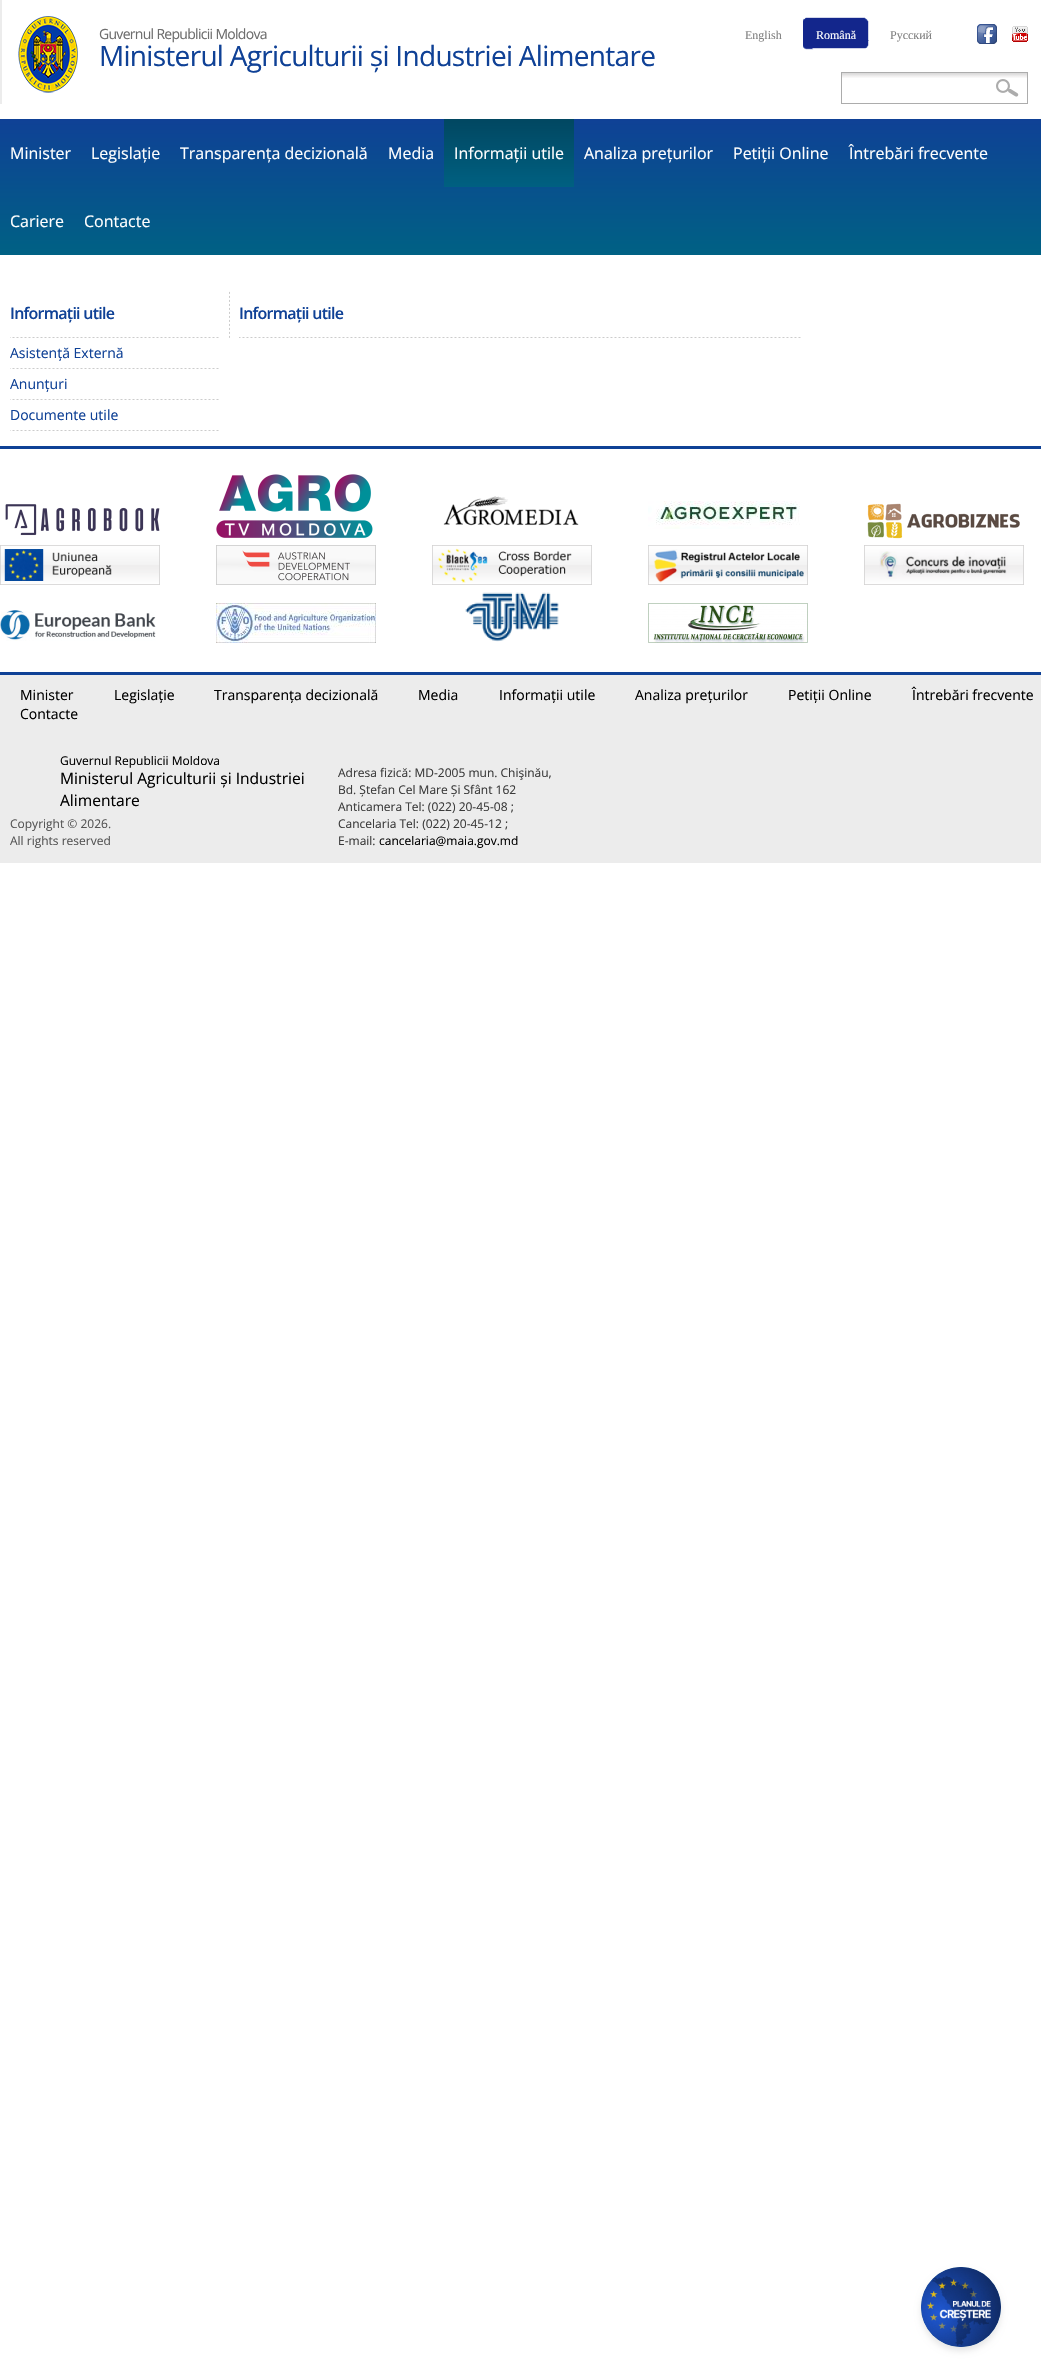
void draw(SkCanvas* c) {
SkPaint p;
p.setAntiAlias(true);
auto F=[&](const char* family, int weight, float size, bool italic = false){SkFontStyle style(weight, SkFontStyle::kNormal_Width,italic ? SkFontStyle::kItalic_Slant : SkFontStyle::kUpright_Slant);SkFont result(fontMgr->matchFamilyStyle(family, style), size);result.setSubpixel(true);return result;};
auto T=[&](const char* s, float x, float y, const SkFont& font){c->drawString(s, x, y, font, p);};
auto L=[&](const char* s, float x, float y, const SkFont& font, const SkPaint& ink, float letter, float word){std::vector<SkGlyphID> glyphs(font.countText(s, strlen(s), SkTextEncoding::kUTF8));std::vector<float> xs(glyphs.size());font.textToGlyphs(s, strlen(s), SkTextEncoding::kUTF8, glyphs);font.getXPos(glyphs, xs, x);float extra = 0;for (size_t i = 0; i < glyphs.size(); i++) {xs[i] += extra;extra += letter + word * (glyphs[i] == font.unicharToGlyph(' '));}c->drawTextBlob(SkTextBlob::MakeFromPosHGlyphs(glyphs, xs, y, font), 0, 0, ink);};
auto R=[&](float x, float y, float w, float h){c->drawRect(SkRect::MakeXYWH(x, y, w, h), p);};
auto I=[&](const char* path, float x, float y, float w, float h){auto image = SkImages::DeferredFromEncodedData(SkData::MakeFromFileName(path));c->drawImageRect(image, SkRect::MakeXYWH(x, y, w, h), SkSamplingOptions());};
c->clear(0xffffffff);
p.setColor(0xffececec);
R(0,0,2,104);
I("1.png",18,16,60,77);
auto f1 = F("Open Sans",400,14);
p.setColor(0xff6e6e6e);
L("Guvernul Republicii Moldova",99,39,f1,p,-.7,0);
auto f2 = F("Open Sans",400,28);
p.setColor(0xff0f4196);
L("Ministerul Agriculturii și Industriei Alimentare",99,66,f2,p,-.7,0);
auto f3 = F("Liberation Serif",400,12);
p.setColor(0xff818181);
T("English",745,39,f3);
I("2.png",803,17,66,33);
p.setColor(0xffffffff);
T("Română",816,39,f3);
p.setColor(0xff818181);
T("Русский",890,39,f3);
I("3.png",977,24,20,20);
I("4.png",1012,26,16,16);
I("5.png",842,73,185,5);
p.setStroke(true);
p.setStrokeWidth(1);
p.setColor(0xffacacac);
c->drawRect(SkRect::MakeXYWH(841.5,72.5,186,31),p);
I("6.png",996,79,23,18);
p.setStroke(false);
{
const SkColor colors[] = {0xff0f4196,0xff006184};
const float stops[] = {0,1};
const SkPoint ends[] = {{521,119}, {521,255}};
p.setShader(SkGradientShader::MakeLinear(ends, colors, stops, 2, SkTileMode::kClamp));
p.setAlpha(255);
}
R(0,119,1041,136);
auto f4 = F("Open Sans",400,16);
p.setShader(nullptr);
p.setColor(0xffffffff);
T("Minister",10,159,f4);
T("Legislație",91,159,f4);
T("Transparența decizională",180,159,f4);
T("Media",388,159,f4);
{
const SkColor colors[] = {0xff014761,0xff006081};
const float stops[] = {0,1};
const SkPoint ends[] = {{509,119}, {509,187}};
p.setShader(SkGradientShader::MakeLinear(ends, colors, stops, 2, SkTileMode::kClamp));
p.setAlpha(255);
}
R(444,119,130,68);
p.setShader(nullptr);
p.setColor(0xffffffff);
T("Informații utile",454,159,f4);
T("Analiza prețurilor",584,159,f4);
T("Petiții Online",733,159,f4);
T("Întrebări frecvente",849,159,f4);
T("Cariere",10,227,f4);
T("Contacte",84,227,f4);
p.setColor(0xff0f4196);
R(0,446,1041,3);
I("7.png",10,337,209,1);
auto f5 = F("Open Sans",600,16);
L("Informații utile",10,319,f5,p,-.75,0);
I("7.png",10,368,209,1);
T("Asistență Externă",10,358,f1);
I("7.png",10,399,209,1);
T("Anunțuri",10,389,f1);
I("7.png",10,430,209,1);
T("Documente utile",10,420,f1);
I("8.png",229,291,1,47);
I("9.png",239,337,562,1);
L("Informații utile",239,319,f5,p,-.75,0);
p.setColor(0x1a000000);
p.setMaskFilter(SkMaskFilter::MakeBlur(kNormal_SkBlurStyle, 3));
c->drawRoundRect(SkRect::MakeXYWH(921,2271,80,80),40,40,p);
p.setMaskFilter(nullptr);
p.setColor(0xff336699);
c->drawCircle(961,2307,40,p);
I("10.png",921,2267,80,80);
p.setColor(0xffececec);
R(0,675,1041,188);
p.setColor(0xff0f4196);
R(0,672,1041,3);
I("11.png",5,504,155,32);
I("12.png",216,474,157,64);
I("13.png",443,496,136,30);
I("14.png",648,501,152,28);
I("15.png",867,503,153,36);
I("16.png",0,545,160,40);
I("17.png",216,545,160,40);
I("18.png",432,545,160,40);
I("19.png",648,545,160,40);
I("20.png",864,545,160,40);
I("21.png",0,610,156,31);
I("22.png",216,603,160,40);
I("23.png",465,592,94,50);
I("24.png",648,603,160,40);
p.setColor(0xff000000);
T("Minister",20,700,f1);
T("Legislație",114,700,f1);
T("Transparența decizională",214,700,f1);
T("Media",418,700,f1);
T("Informații utile",499,700,f1);
T("Analiza prețurilor",635,700,f1);
T("Petiții Online",788,700,f1);
T("Întrebări frecvente",912,700,f1);
T("Contacte",20,719,f1);
auto f6 = F("Open Sans",400,12);
T("Guvernul Republicii Moldova",60,765,f6);
auto f7 = F("Open Sans",400,15.6);
T("Ministerul Agriculturii și Industriei",60,784,f7);
T("Alimentare",60,806,f7);
p.setColor(0xff555555);
T("Copyright © 2026.",10,828,f6);
T("All rights reserved",10,845,f6);
p.setColor(0xff3b3b3b);
T("Adresa fizică: MD-2005 mun. Chişinău,",338,777,f6);
T("Bd. Ștefan Cel Mare Și Sfânt 162",338,794,f6);
T("Anticamera Tel: (022) 20-45-08 ;",338,811,f6);
T("Cancelaria Tel: (022) 20-45-12 ;",338,828,f6);
T("E-mail:",338,845,f6);
p.setColor(0xff000000);
T("cancelaria@maia.gov.md",379,845,f6);
}
